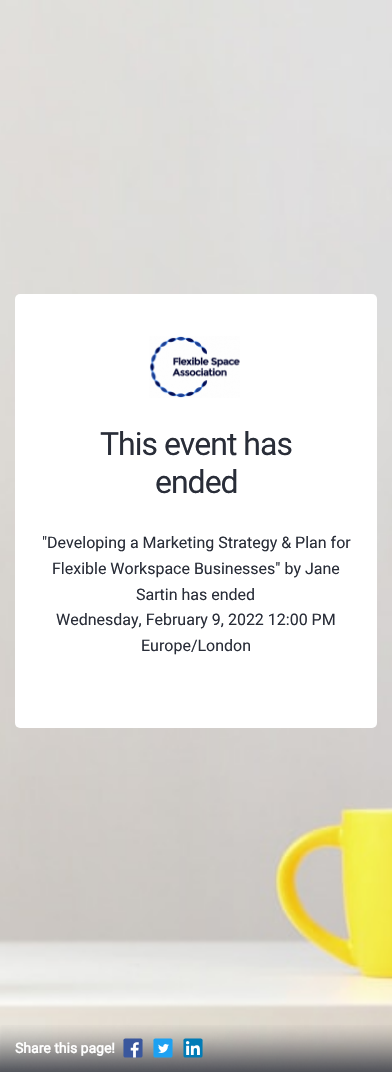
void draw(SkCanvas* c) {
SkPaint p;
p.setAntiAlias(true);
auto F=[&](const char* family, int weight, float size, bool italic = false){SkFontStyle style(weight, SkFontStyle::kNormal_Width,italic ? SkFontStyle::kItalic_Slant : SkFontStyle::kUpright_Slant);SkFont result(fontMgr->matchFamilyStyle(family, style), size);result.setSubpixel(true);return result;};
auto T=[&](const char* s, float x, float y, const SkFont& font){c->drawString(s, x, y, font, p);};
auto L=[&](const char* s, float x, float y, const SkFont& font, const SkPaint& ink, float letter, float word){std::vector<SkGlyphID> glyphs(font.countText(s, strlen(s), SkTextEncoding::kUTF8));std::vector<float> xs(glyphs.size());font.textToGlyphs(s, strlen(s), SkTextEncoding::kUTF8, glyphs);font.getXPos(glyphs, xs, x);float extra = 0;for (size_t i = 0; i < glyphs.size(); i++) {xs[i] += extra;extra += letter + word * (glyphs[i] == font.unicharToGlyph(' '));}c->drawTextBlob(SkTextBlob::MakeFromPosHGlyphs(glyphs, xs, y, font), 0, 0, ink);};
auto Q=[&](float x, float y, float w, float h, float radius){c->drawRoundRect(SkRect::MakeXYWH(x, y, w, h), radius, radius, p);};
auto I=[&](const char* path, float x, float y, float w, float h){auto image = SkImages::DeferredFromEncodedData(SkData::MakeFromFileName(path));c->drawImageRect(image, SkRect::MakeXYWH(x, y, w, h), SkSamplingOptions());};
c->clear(0xffffffff);
I("1.png",0,0,392,1072);
p.setColor(0xffffffff);
Q(15,294,362,434,5);
I("2.png",149,336,91,62);
auto f1 = F("Roboto",400,32);
p.setColor(0xff292d38);
L("This event has",100,455,f1,p,-1,0);
L("ended",155,493,f1,p,-1,0);
auto f2 = F("Roboto",400,16);
T("\"Developing a Marketing Strategy & Plan for",42,548,f2);
T("Flexible Workspace Businesses\" by Jane",52,574,f2);
T("Sartin has ended",136,600,f2);
T("Wednesday, February 9, 2022 12:00 PM",56,625,f2);
T("Europe/London",141,651,f2);
I("3.png",0,1025,392,47);
auto f3 = F("Roboto",700,14);
p.setColor(0xffffffff);
T("Share this page!",15,1053,f3);
I("4.png",123,1038,20,20);
I("5.png",153,1038,20,20);
I("6.png",183,1038,20,20);
}
